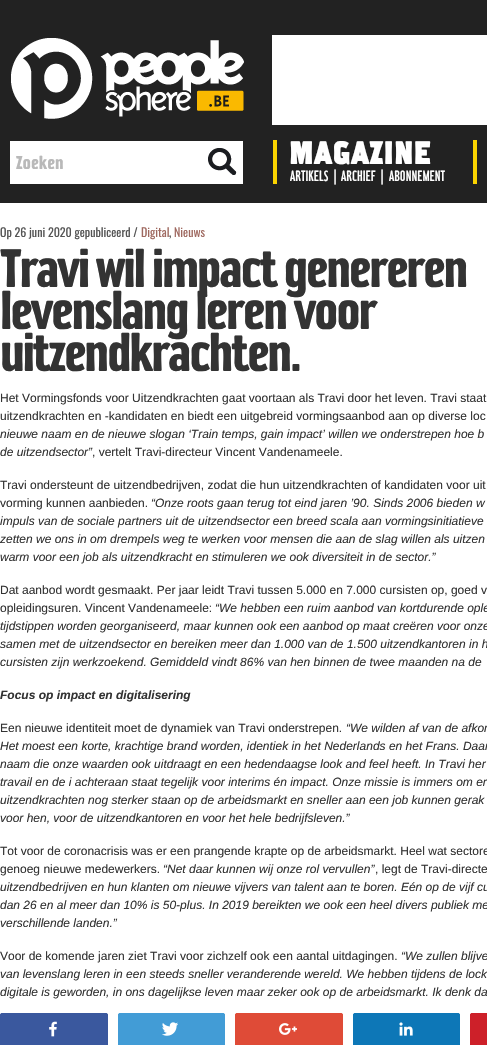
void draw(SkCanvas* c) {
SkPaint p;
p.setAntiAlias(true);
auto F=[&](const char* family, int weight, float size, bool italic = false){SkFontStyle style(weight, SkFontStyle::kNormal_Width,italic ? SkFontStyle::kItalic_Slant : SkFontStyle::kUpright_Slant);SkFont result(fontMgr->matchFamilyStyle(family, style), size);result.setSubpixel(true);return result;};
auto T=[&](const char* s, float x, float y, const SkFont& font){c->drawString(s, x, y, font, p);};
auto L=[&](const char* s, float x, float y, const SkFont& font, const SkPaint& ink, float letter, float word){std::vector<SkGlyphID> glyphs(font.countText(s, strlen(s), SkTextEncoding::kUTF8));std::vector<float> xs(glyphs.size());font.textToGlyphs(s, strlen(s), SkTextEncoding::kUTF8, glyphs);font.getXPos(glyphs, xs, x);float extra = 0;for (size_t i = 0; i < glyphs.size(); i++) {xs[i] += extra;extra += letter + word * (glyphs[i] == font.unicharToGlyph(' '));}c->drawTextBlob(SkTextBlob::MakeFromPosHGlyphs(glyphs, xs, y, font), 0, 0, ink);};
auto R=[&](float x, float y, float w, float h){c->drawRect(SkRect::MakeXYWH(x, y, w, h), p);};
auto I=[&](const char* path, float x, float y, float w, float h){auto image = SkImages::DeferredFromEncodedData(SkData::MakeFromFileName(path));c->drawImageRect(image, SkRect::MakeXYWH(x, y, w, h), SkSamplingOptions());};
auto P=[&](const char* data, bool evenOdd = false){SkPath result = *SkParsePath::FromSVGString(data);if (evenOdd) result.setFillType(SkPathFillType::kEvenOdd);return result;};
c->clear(0xffffffff);
p.setColor(0xff222222);
R(0,0,487,203);
I("1.png",11,38,233,81);
p.setColor(0xffffffff);
R(272,35,215,90);
R(10,141,233,43);
auto f1 = F("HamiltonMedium",500,20);
p.setColor(0xffb9b9b9);
T("Zoeken",16,169,f1);
I("2.png",208,148,29,27);
p.setColor(0xfffbd400);
R(273,140,4,44);
auto f2 = F("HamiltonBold",700,35);
p.setColor(0xffffffff);
T("MAGAZINE",289,164,f2);
p.setColor(0xfffbd400);
R(473,140,4,44);
auto f3 = F("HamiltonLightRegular",300,16);
p.setColor(0xffffffff);
T("ARTIKELS",290,181,f3);
auto f4 = F("Liberation Sans",400,16);
T("|",333,181,f4);
T("ARCHIEF",341,181,f3);
T("|",380,181,f4);
T("ABONNEMENT",389,181,f3);
auto f5 = F("Oswald",400,12);
p.setColor(0xff555555);
T("Op 26 juni 2020 gepubliceerd /",0,237,f5);
p.setColor(0xff9f6960);
T("Digital",141,237,f5);
p.setColor(0xff555555);
T(",",169,237,f5);
p.setColor(0xff9f6960);
T("Nieuws",174,237,f5);
auto f6 = F("HamiltonMedium",500,58);
p.setColor(0xff333333);
L("Travi wil impact genereren",0,287,f6,p,-2.3,0);
L("levenslang leren voor",0,329,f6,p,-2.3,0);
L("uitzendkrachten.",0,371,f6,p,-2.3,0);
auto f7 = F("Liberation Sans",400,12);
T("Het Vormingsfonds voor Uitzendkrachten gaat voortaan als Travi door het leven. Travi staat",0,402,f7);
T("uitzendkrachten en -kandidaten en biedt een uitgebreid vormingsaanbod aan op diverse loc",0,420,f7);
auto f8 = F("Liberation Sans",400,12,true);
T("nieuwe naam en de nieuwe slogan ‘Train temps, gain impact’ willen we onderstrepen hoe b",0,438,f8);
T("de uitzendsector”",0,456,f8);
T(", vertelt Travi-directeur Vincent Vandenameele.",92,456,f7);
T("Travi ondersteunt de uitzendbedrijven, zodat die hun uitzendkrachten of kandidaten voor uit",0,489,f7);
T("vorming kunnen aanbieden.",0,507,f7);
T("“Onze roots gaan terug tot eind jaren ’90. Sinds 2006 bieden w",151,507,f8);
T("impuls van de sociale partners uit de uitzendsector een breed scala aan vormingsinitiatieve",0,525,f8);
T("zetten we ons in om drempels weg te werken voor mensen die aan de slag willen als uitzen",0,543,f8);
T("warm voor een job als uitzendkracht en stimuleren we ook diversiteit in de sector.”",0,561,f8);
T("Dat aanbod wordt gesmaakt. Per jaar leidt Travi tussen 5.000 en 7.000 cursisten op, goed v",0,594,f7);
T("opleidingsuren. Vincent Vandenameele:",0,612,f7);
T("“We hebben een ruim aanbod van kortdurende ople",215,612,f8);
T("tijdstippen worden georganiseerd, maar kunnen ook een aanbod op maat creëren voor onze",0,630,f8);
T("samen met de uitzendsector en bereiken meer dan 1.000 van de 1.500 uitzendkantoren in h",0,648,f8);
T("cursisten zijn werkzoekend. Gemiddeld vindt 86% van hen binnen de twee maanden na de",0,666,f8);
auto f9 = F("Liberation Sans",700,12,true);
T("Focus op impact en digitalisering",0,699,f9);
T("Een nieuwe identiteit moet de dynamiek van Travi onderstrepen.",0,732,f7);
T("“We wilden af van de afkor",346,732,f8);
T("Het moest een korte, krachtige brand worden, identiek in het Nederlands en het Frans. Daar",0,750,f8);
T("naam die onze waarden ook uitdraagt en een hedendaagse look and feel heeft. In Travi her",0,768,f8);
T("travail en de i achteraan staat tegelijk voor interims én impact. Onze missie is immers om er",0,786,f8);
T("uitzendkrachten nog sterker staan op de arbeidsmarkt en sneller aan een job kunnen gerak",0,804,f8);
T("voor hen, voor de uitzendkantoren en voor het hele bedrijfsleven.”",0,822,f8);
T("Tot voor de coronacrisis was er een prangende krapte op de arbeidsmarkt. Heel wat sectore",0,855,f7);
T("genoeg nieuwe medewerkers.",0,873,f7);
T("“Net daar kunnen wij onze rol vervullen”",163,873,f8);
T(", legt de Travi-directe",375,873,f7);
T("uitzendbedrijven en hun klanten om nieuwe vijvers van talent aan te boren. Eén op de vijf cu",0,891,f8);
T("dan 26 en al meer dan 10% is 50-plus. In 2019 bereikten we ook een heel divers publiek me",0,909,f8);
T("verschillende landen.”",0,927,f8);
T("Voor de komende jaren ziet Travi voor zichzelf ook een aantal uitdagingen.",0,960,f7);
T("“We zullen blijve",401,960,f8);
T("van levenslang leren in een steeds sneller veranderende wereld. We hebben tijdens de lock",0,978,f8);
T("digitale is geworden, in ons dagelijkse leven maar zeker ook op de arbeidsmarkt. Ik denk da",0,996,f8);
p.setColor(0xff3a589e);
c->drawPath(P("M2 1013h104c1 0 2 1 2 2v30h-108v-30c0-1 1-2 2-2z"),p);
c->save();
c->clipRect(SkRect::MakeXYWH(0,1013,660,32));
p.setStroke(true);
p.setStrokeWidth(1);
c->drawRoundRect(SkRect::MakeXYWH(.5,1013.5,107,33),1.5,1.5,p);
c->restore();
I("3.png",49,1021,8,16);
p.setStroke(false);
p.setColor(0xff429cd6);
c->drawPath(P("M120 1013h103c1 0 2 1 2 2v30h-107v-30c0-1 1-2 2-2z"),p);
c->save();
c->clipRect(SkRect::MakeXYWH(0,1013,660,32));
p.setStroke(true);
c->drawRoundRect(SkRect::MakeXYWH(118.5,1013.5,106,33),1.5,1.5,p);
c->restore();
I("4.png",162,1022,16,14);
p.setStroke(false);
p.setColor(0xffdf4b37);
c->drawPath(P("M237 1013h104c1 0 2 1 2 2v30h-108v-30c0-1 1-2 2-2z"),p);
c->save();
c->clipRect(SkRect::MakeXYWH(0,1013,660,32));
p.setStroke(true);
c->drawRoundRect(SkRect::MakeXYWH(235.5,1013.5,107,33),1.5,1.5,p);
c->restore();
I("5.png",279,1023,18,12);
p.setStroke(false);
p.setColor(0xff0d77b7);
c->drawPath(P("M355 1013h103c1 0 2 1 2 2v30h-107v-30c0-1 1-2 2-2z"),p);
c->save();
c->clipRect(SkRect::MakeXYWH(0,1013,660,32));
p.setStroke(true);
c->drawRoundRect(SkRect::MakeXYWH(353.5,1013.5,106,33),1.5,1.5,p);
c->restore();
I("6.png",399,1022,14,14);
p.setStroke(false);
p.setColor(0xffcd2029);
c->drawPath(P("M472 1013h15c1 0 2 1 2 2v30h-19v-30c0-1 1-2 2-2z"),p);
c->save();
c->clipRect(SkRect::MakeXYWH(0,1013,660,32));
p.setStroke(true);
c->drawRoundRect(SkRect::MakeXYWH(470.5,1013.5,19,33),1.5,1.5,p);
c->restore();
}
